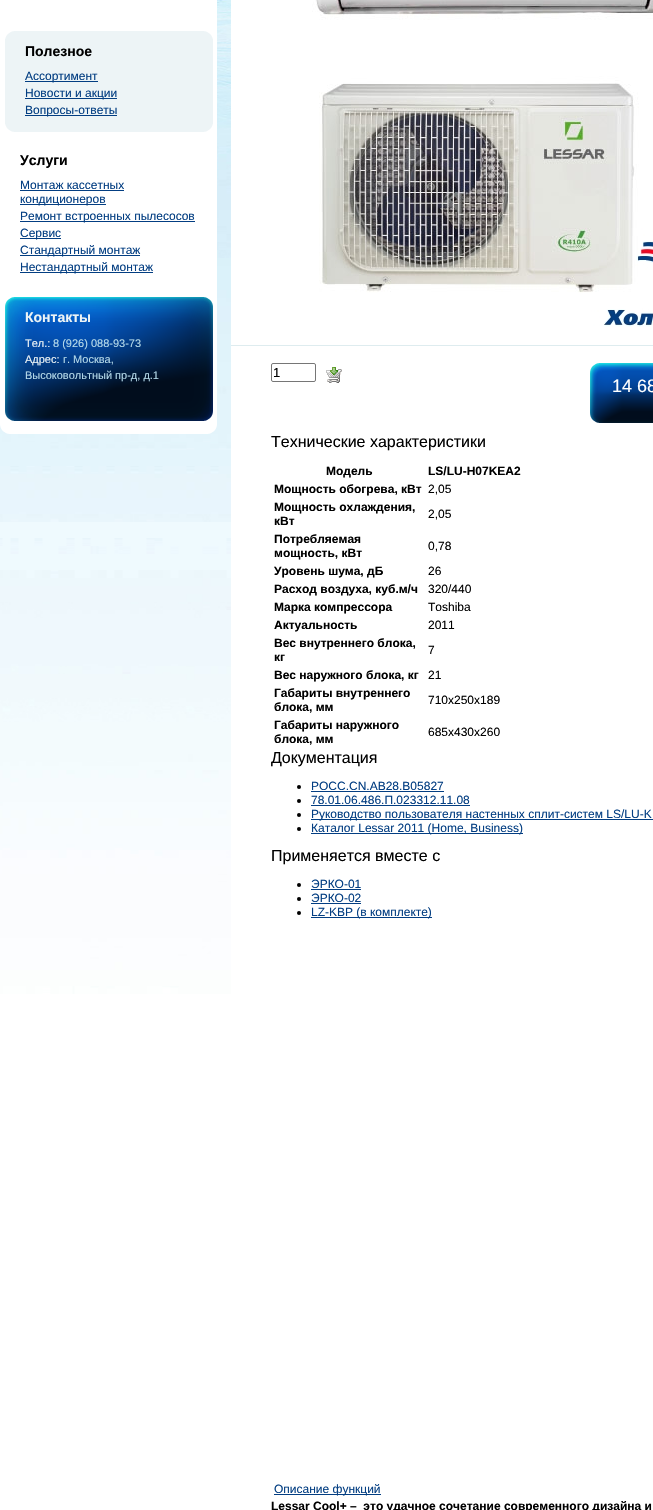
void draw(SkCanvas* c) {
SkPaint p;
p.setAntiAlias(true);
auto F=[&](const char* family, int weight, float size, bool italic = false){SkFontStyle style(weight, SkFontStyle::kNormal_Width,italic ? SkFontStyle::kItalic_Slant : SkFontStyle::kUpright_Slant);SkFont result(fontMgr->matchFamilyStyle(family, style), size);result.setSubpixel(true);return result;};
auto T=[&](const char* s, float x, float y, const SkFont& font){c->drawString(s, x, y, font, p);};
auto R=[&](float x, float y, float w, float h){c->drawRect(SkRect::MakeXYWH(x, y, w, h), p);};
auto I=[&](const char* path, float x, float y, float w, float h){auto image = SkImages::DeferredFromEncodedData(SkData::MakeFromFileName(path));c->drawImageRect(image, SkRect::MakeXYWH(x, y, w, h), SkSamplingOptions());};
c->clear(0xffffffff);
I("1.png",0,0,231,994);
p.setColor(0xffffffff);
R(0,0,217,424);
p.setColor(0xffedf4f6);
R(5,39,208,85);
I("2.png",5,124,208,8);
I("3.png",5,31,208,8);
auto f1 = F("Liberation Sans",700,14);
p.setColor(0xff000000);
T("Полезное",25,56,f1);
p.setColor(0xff033e82);
R(25,81,73,1);
auto f2 = F("Liberation Sans",400,12);
T("Ассортимент",25,80,f2);
R(25,98,92,1);
T("Новости и акции",25,97,f2);
R(25,115,92,1);
T("Вопросы-ответы",25,114,f2);
p.setColor(0xff000000);
T("Услуги",20,165,f1);
p.setColor(0xff033e82);
T("Монтаж кассетных",20,189,f2);
R(20,190,104,1);
R(20,204,86,1);
T("кондиционеров",20,203,f2);
R(20,221,175,1);
T("Ремонт встроенных пылесосов",20,220,f2);
R(20,238,41,1);
T("Сервис",20,237,f2);
R(20,255,120,1);
T("Стандартный монтаж",20,254,f2);
R(20,272,133,1);
T("Нестандартный монтаж",20,271,f2);
I("4.png",5,297,208,124);
p.setColor(0xffedf4f6);
T("Контакты",25,322,f1);
auto f3 = F("Liberation Sans",400,11);
T("Тел.:",25,347,f3);
p.setColor(0xffb5daea);
T("8 (926) 088-93-73",53,347,f3);
p.setColor(0xffedf4f6);
T("Адрес:",25,363,f3);
p.setColor(0xffb5daea);
T("г. Москва,",63,363,f3);
T("Высоковольтный пр-д, д.1",25,379,f3);
I("5.png",0,424,217,10);
I("6.png",312,0,341,327);
p.setColor(0xffdeecef);
R(231,345,422,1);
p.setStroke(true);
p.setStrokeWidth(1);
p.setColor(0xff767676);
c->drawRoundRect(SkRect::MakeXYWH(271.5,363.5,44,18),1.5,1.5,p);
auto f4 = F("Liberation Sans",400,13);
p.setStroke(false);
p.setColor(0xff000000);
T("1",273,377,f4);
I("7.png",326,367,16,16);
I("8.png",590,363,63,60);
auto f5 = F("Liberation Sans",400,18);
p.setColor(0xffffffff);
T("14 68",612,392,f5);
auto f6 = F("Liberation Sans",400,16);
p.setColor(0xff000000);
T("Технические характеристики",271,447,f6);
auto f7 = F("Liberation Sans",700,12);
T("Модель",326,475,f7);
T("LS/LU-H07KEA2",428,475,f7);
T("Мощность обогрева, кВт",274,493,f7);
T("2,05",428,493,f2);
T("Мощность охлаждения,",274,511,f7);
T("кВт",274,525,f7);
T("2,05",428,518,f2);
T("Потребляемая",274,543,f7);
T("мощность, кВт",274,557,f7);
T("0,78",428,550,f2);
T("Уровень шума, дБ",274,575,f7);
T("26",428,575,f2);
T("Расход воздуха, куб.м/ч",274,593,f7);
T("320/440",428,593,f2);
T("Марка компрессора",274,611,f7);
T("Toshiba",428,611,f2);
T("Актуальность",274,629,f7);
T("2011",428,629,f2);
T("Вес внутреннего блока,",274,647,f7);
T("кг",274,661,f7);
T("7",428,654,f2);
T("Вес наружного блока, кг",274,679,f7);
T("21",428,679,f2);
T("Габариты внутреннего",274,697,f7);
T("блока, мм",274,711,f7);
T("710x250x189",428,704,f2);
T("Габариты наружного",274,729,f7);
T("блока, мм",274,743,f7);
T("685x430x260",428,736,f2);
T("Документация",271,763,f6);
c->drawCircle(299,787,2,p);
p.setColor(0xff033e82);
T("РОСС.CN.AB28.B05827",311,790,f2);
R(311,791,133,1);
p.setColor(0xff000000);
c->drawCircle(299,801,2,p);
p.setColor(0xff033e82);
T("78.01.06.486.П.023312.11.08",311,804,f2);
R(311,805,159,1);
p.setColor(0xff000000);
c->drawCircle(299,815,2,p);
p.setColor(0xff033e82);
R(311,819,342,1);
T("Руководство пользователя настенных сплит-систем LS/LU-K",311,818,f2);
p.setColor(0xff000000);
c->drawCircle(299,829,2,p);
p.setColor(0xff033e82);
R(311,833,212,1);
T("Каталог Lessar 2011 (Home, Business)",311,832,f2);
p.setColor(0xff000000);
T("Применяется вместе с",271,861,f6);
c->drawCircle(299,885,2,p);
p.setColor(0xff033e82);
T("ЭРКО-01",311,888,f2);
R(311,889,50,1);
p.setColor(0xff000000);
c->drawCircle(299,899,2,p);
p.setColor(0xff033e82);
T("ЭРКО-02",311,902,f2);
R(311,903,50,1);
p.setColor(0xff000000);
c->drawCircle(299,913,2,p);
p.setColor(0xff033e82);
R(311,917,121,1);
T("LZ-KBP (в комплекте)",311,916,f2);
R(274,1494,107,1);
T("Описание функций",274,1493,f2);
p.setColor(0xff000000);
T("Lessar Cool+ –  это удачное сочетание современного дизайна и",271,1510,f7);
}
